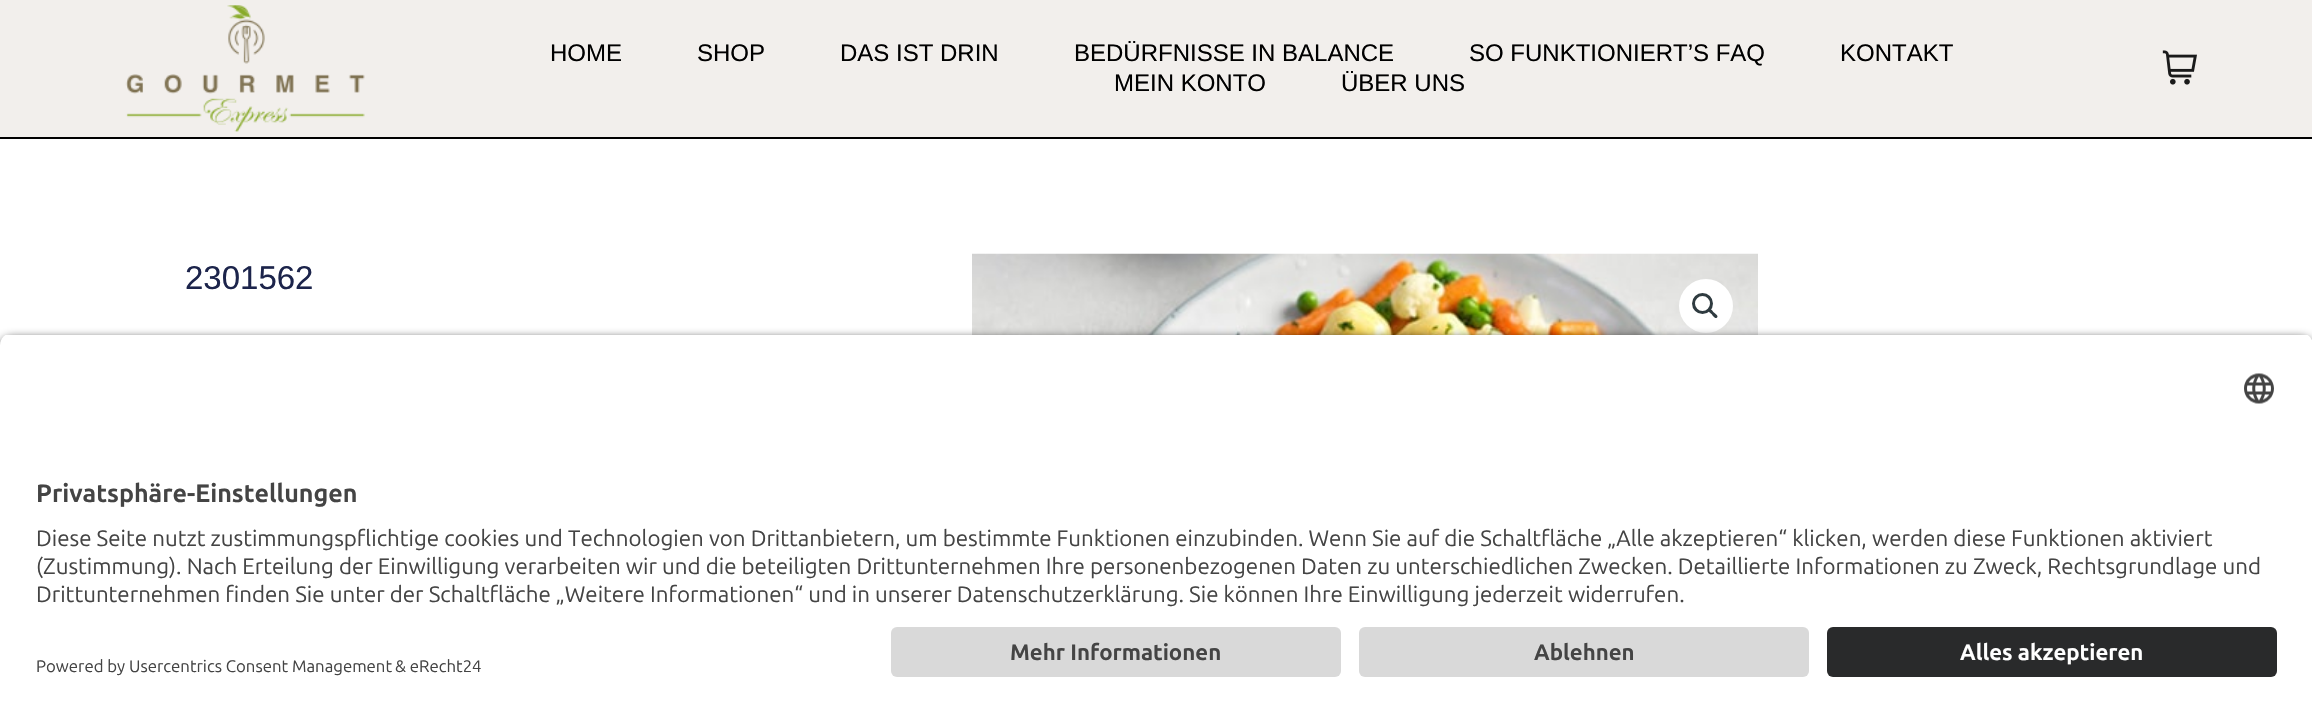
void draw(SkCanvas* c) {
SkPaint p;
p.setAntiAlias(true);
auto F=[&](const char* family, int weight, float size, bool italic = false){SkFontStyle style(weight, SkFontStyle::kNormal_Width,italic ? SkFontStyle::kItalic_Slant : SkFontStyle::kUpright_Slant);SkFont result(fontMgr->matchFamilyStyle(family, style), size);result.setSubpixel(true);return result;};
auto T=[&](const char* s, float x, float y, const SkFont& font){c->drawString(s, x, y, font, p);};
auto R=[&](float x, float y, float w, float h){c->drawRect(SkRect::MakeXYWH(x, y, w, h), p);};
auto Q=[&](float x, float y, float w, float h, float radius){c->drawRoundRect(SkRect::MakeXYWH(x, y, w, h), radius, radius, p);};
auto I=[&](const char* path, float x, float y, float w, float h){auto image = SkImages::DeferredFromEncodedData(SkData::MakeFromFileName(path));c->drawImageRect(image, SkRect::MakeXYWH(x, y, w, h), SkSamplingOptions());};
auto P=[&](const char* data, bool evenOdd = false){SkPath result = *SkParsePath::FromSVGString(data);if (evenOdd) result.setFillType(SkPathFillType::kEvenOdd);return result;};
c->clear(0xffffffff);
p.setColor(0xfff2efec);
R(0,0,2312,137);
p.setColor(0xff000000);
R(0,137,2312,2);
I("1.png",125,5,240,127);
auto f1 = F("Liberation Sans",400,24);
T("HOME",550,61,f1);
T("SHOP",697,61,f1);
T("DAS IST DRIN",840,61,f1);
T("BEDÜRFNISSE IN BALANCE",1074,61,f1);
T("SO FUNKTIONIERT’S FAQ",1469,61,f1);
T("KONTAKT",1840,61,f1);
T("MEIN KONTO",1114,91,f1);
T("ÜBER UNS",1341,91,f1);
I("2.png",2162,50,35,35);
auto f2 = F("Liberation Sans",400,33);
p.setColor(0xff1c244b);
T("2301562",185,289,f2);
I("3.png",972,253,786,82);
p.setColor(0xffffffff);
c->drawCircle(1706,306,27,p);
p.setStroke(true);
p.setStrokeWidth(3);
p.setColor(0xff2f3b40);
c->drawCircle(1702.5,303.5,9,p);
p.setStroke(false);
c->drawPath(P("M1708.5 309c2-1.5 4.5 2.5 5.5 3.5c1 1 5 3.5 3 5c-1.5 2-4.5-2-5-3c-1-1-5-3.5-3.5-5.5z"),p);
p.setColor(0xcc000000);
p.setMaskFilter(SkMaskFilter::MakeBlur(kNormal_SkBlurStyle, 5));
c->drawRoundRect(SkRect::MakeXYWH(0,338,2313,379),12,12,p);
p.setMaskFilter(nullptr);
c->save();
c->clipPath(P("M12 333h2289c6.5 0 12 5.5 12 12v270h-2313v-270c0-6.5 5.5-12 12-12z"),true);
p.setColor(0xffffffff);
R(0,335,2312,280);
c->restore();
I("4.png",2244,373,30,31);
auto f3 = F("Ubuntu",700,25.1);
p.setColor(0xff444444);
T("Privatsphäre-Einstellungen",36,502,f3);
auto f4 = F("Ubuntu",400,22.3);
T("Diese Seite nutzt zustimmungspflichtige cookies und Technologien von Drittanbietern, um bestimmte Funktionen einzubinden. Wenn Sie auf die Schaltfläche „Alle akzeptieren“ klicken, werden diese Funktionen aktiviert",36,546,f4);
T("(Zustimmung). Nach Erteilung der Einwilligung verarbeiten wir und die beteiligten Drittunternehmen Ihre personenbezogenen Daten zu unterschiedlichen Zwecken. Detaillierte Informationen zu Zweck, Rechtsgrundlage und",36,574,f4);
T("Drittunternehmen finden Sie unter der Schaltfläche „Weitere Informationen“ und in unserer Datenschutzerklärung. Sie können Ihre Einwilligung jederzeit widerrufen.",36,602,f4);
p.setColor(0xffffffff);
R(0,615,2312,97);
p.setColor(0xffd9d9d9);
Q(891,627,450,50,6);
auto f5 = F("Ubuntu",700,22.3);
p.setColor(0xff444444);
T("Mehr Informationen",1010,660,f5);
p.setColor(0xffd9d9d9);
Q(1359,627,450,50,6);
p.setColor(0xff444444);
T("Ablehnen",1534,660,f5);
p.setColor(0xff292a2b);
Q(1827,627,450,50,6);
p.setColor(0xffffffff);
T("Alles akzeptieren",1960,660,f5);
auto f6 = F("Ubuntu",400,16.75);
p.setColor(0xff444444);
T("Powered by Usercentrics Consent Management",36,672,f6);
T("& eRecht24",395,672,f6);
}
